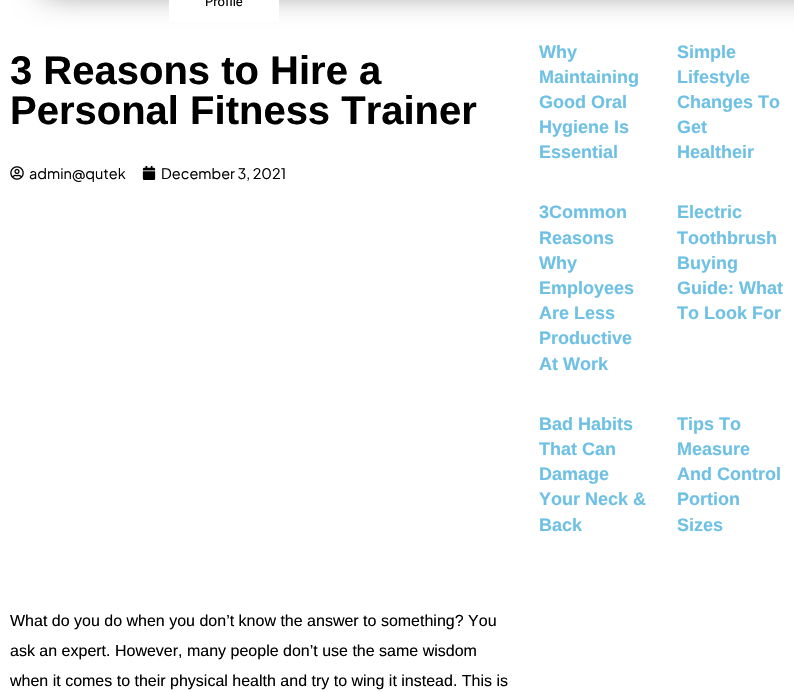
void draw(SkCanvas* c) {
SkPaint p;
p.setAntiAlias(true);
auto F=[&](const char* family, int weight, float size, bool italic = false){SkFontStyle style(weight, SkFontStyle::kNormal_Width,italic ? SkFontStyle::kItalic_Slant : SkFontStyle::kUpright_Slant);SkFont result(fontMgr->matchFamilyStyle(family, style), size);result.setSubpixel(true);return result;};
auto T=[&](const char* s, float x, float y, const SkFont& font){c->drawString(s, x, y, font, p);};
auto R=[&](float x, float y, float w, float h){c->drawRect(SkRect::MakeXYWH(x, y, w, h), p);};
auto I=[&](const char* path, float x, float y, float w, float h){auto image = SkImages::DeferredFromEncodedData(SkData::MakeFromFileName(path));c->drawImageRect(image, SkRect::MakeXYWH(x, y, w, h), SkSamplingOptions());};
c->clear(0xffffffff);
p.setColor(0x80000000);
p.setMaskFilter(SkMaskFilter::MakeBlur(kNormal_SkBlurStyle, 16.5));
c->drawRoundRect(SkRect::MakeXYWH(44,-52,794,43),2,2,p);
p.setMaskFilter(nullptr);
p.setColor(0xffffffff);
R(169,0,110,22);
auto f1 = F("Roboto",400,13);
p.setColor(0xff000000);
T("Profile",205,6,f1);
auto f2 = F("Liberation Sans",700,40);
T("3 Reasons to Hire a",10,84,f2);
T("Personal Fitness Trainer",10,124,f2);
I("1.png",10,166,14,14);
auto f3 = F("Plus Jakarta Sans",400,14.5);
T("admin@qutek",29,179,f3);
I("2.png",142,166,14,14);
T("December 3, 2021",161,179,f3);
auto f4 = F("Liberation Sans",400,16);
T("What do you do when you don’t know the answer to something? You",10,626,f4);
T("ask an expert. However, many people don’t use the same wisdom",10,656,f4);
T("when it comes to their physical health and try to wing it instead. This is",10,686,f4);
auto f5 = F("Liberation Sans",700,18);
p.setColor(0xff6ec1e4);
T("Why",539,58,f5);
T("Maintaining",539,83,f5);
T("Good Oral",539,108,f5);
T("Hygiene Is",539,133,f5);
T("Essential",539,158,f5);
T("Simple",677,58,f5);
T("Lifestyle",677,83,f5);
T("Changes To",677,108,f5);
T("Get",677,133,f5);
T("Healtheir",677,158,f5);
T("3Common",539,218,f5);
T("Reasons",539,244,f5);
T("Why",539,269,f5);
T("Employees",539,294,f5);
T("Are Less",539,319,f5);
T("Productive",539,344,f5);
T("At Work",539,370,f5);
T("Electric",677,218,f5);
c->save();
c->clipRect(SkRect::MakeXYWH(677,200,107,177));
T("Toothbrush",677,244,f5);
c->restore();
T("Buying",677,269,f5);
T("Guide: What",677,294,f5);
c->save();
c->clipRect(SkRect::MakeXYWH(677,200,107,177));
T("To Look For",677,319,f5);
c->restore();
T("Bad Habits",539,430,f5);
T("That Can",539,455,f5);
T("Damage",539,480,f5);
T("Your Neck &",539,505,f5);
T("Back",539,531,f5);
c->save();
c->clipRect(SkRect::MakeXYWH(677,412,107,126));
T("Tips To",677,430,f5);
c->restore();
T("Measure",677,455,f5);
T("And Control",677,480,f5);
T("Portion",677,505,f5);
T("Sizes",677,531,f5);
}
